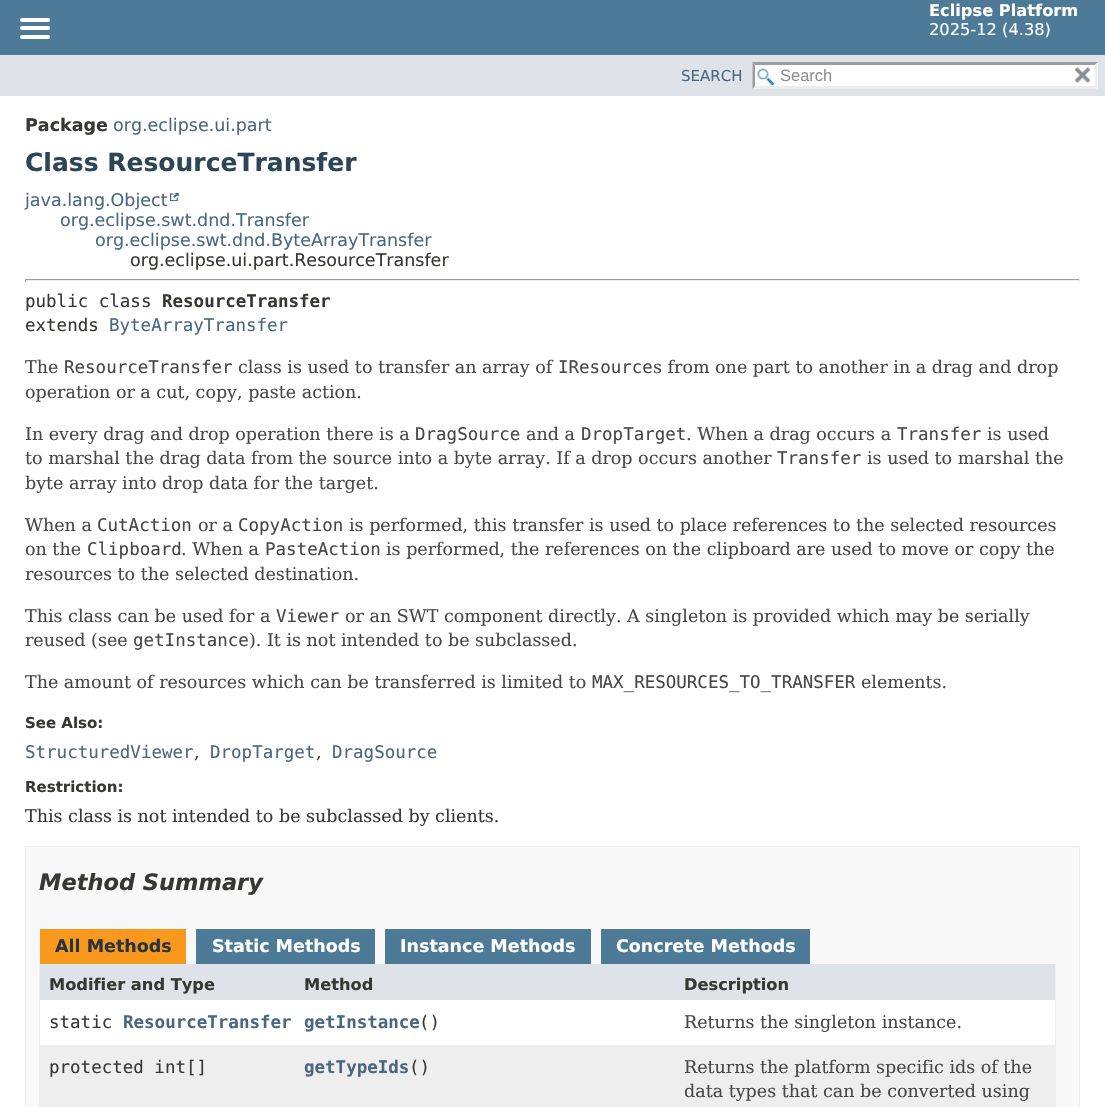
void draw(SkCanvas* c) {
SkPaint p;
p.setAntiAlias(true);
auto F=[&](const char* family, int weight, float size, bool italic = false){SkFontStyle style(weight, SkFontStyle::kNormal_Width,italic ? SkFontStyle::kItalic_Slant : SkFontStyle::kUpright_Slant);SkFont result(fontMgr->matchFamilyStyle(family, style), size);result.setSubpixel(true);return result;};
auto T=[&](const char* s, float x, float y, const SkFont& font){c->drawString(s, x, y, font, p);};
auto R=[&](float x, float y, float w, float h){c->drawRect(SkRect::MakeXYWH(x, y, w, h), p);};
auto Q=[&](float x, float y, float w, float h, float radius){c->drawRoundRect(SkRect::MakeXYWH(x, y, w, h), radius, radius, p);};
auto I=[&](const char* path, float x, float y, float w, float h){auto image = SkImages::DeferredFromEncodedData(SkData::MakeFromFileName(path));c->drawImageRect(image, SkRect::MakeXYWH(x, y, w, h), SkSamplingOptions());};
auto P=[&](const char* data, bool evenOdd = false){SkPath result = *SkParsePath::FromSVGString(data);if (evenOdd) result.setFillType(SkPathFillType::kEvenOdd);return result;};
c->clear(0xffffffff);
p.setColor(0xff4d7a97);
R(0,0,1105,55);
p.setColor(0xffffffff);
Q(20,18,30,4,2);
Q(20,26,30,4,2);
Q(20,35,30,4,2);
auto f1 = F("DejaVu Sans",700,16.25);
T("Eclipse Platform",929,16,f1);
auto f2 = F("DejaVu Sans",400,16.25);
T("2025-12 (4.38)",929,35,f2);
p.setColor(0xffdee3e9);
R(0,55,1105,41);
auto f3 = F("DejaVu Sans",400,15);
p.setColor(0xff4a6782);
T("SEARCH",681,81,f3);
p.setColor(0xffffffff);
R(753,63,345,26);
I("1.png",757,68,17,17);
p.setColor(0xff9e9e9e);
c->drawPath(P("M752 62h346l-3 3h-340z"),p);
p.setColor(0xffededed);
c->drawPath(P("M1097.5 62.5v26.5l-2.5-3v-21z"),p);
c->drawPath(P("M1098 89h-346l3-3h340z"),p);
p.setColor(0xff9e9e9e);
c->drawPath(P("M752.5 89v-26.5l2.5 2.5v21z"),p);
auto f4 = F("Liberation Sans",400,16.5);
p.setColor(0xff909090);
T("Search",780,81,f4);
I("2.png",1075,67,15,16);
auto f5 = F("DejaVu Sans",700,17.5);
p.setColor(0xff353833);
T("Package",25,131,f5);
auto f6 = F("DejaVu Sans",400,17.5);
p.setColor(0xff4a6782);
T("org.eclipse.ui.part",113,131,f6);
auto f7 = F("DejaVu Sans",700,25);
p.setColor(0xff2c4557);
T("Class ResourceTransfer",25,171,f7);
p.setColor(0xff4a6782);
T("java.lang.Object",25,206,f6);
I("3.png",170,193,9,8);
T("org.eclipse.swt.dnd.Transfer",60,226,f6);
T("org.eclipse.swt.dnd.ByteArrayTransfer",95,246,f6);
p.setColor(0xff353833);
T("org.eclipse.ui.part.ResourceTransfer",130,266,f6);
p.setColor(0xff9f9f9f);
R(25,279,1055,1);
p.setColor(0xffeeeeee);
R(1079,279,1,3);
R(25,280,1055,1);
p.setColor(0xff9f9f9f);
R(25,279,1,3);
auto f8 = F("DejaVu Sans Mono",400,17.5);
p.setColor(0xff353833);
T("public class",25,307,f8);
auto f9 = F("DejaVu Sans Mono",700,17.5);
T("ResourceTransfer",162,307,f9);
T("extends",25,331,f8);
p.setColor(0xff4a6782);
T("ByteArrayTransfer",109,331,f8);
auto f10 = F("DejaVu Serif",400,17.5);
p.setColor(0xff474747);
T("The",25,373,f10);
T("ResourceTransfer",64,373,f8);
T("class is used to transfer an array of",238,373,f10);
T("IResource",558,373,f8);
T("s from one part to another in a drag and drop",653,373,f10);
T("operation or a cut, copy, paste action.",25,398,f10);
T("In every drag and drop operation there is a",25,440,f10);
T("DragSource",415,440,f8);
T("and a",526,440,f10);
T("DropTarget",581,440,f8);
T(". When a drag occurs a",686,440,f10);
T("Transfer",897,440,f8);
T("is used",987,440,f10);
T("to marshal the drag data from the source into a byte array. If a drop occurs another",25,464,f10);
T("Transfer",777,464,f8);
T("is used to marshal the",867,464,f10);
T("byte array into drop data for the target.",25,489,f10);
T("When a",25,531,f10);
T("CutAction",97,531,f8);
T("or a",198,531,f10);
T("CopyAction",238,531,f8);
T("is performed, this transfer is used to place references to the selected resources",349,531,f10);
T("on the",25,555,f10);
T("Clipboard",87,555,f8);
T(". When a",181,555,f10);
T("PasteAction",265,555,f8);
T("is performed, the references on the clipboard are used to move or copy the",386,555,f10);
T("resources to the selected destination.",25,580,f10);
T("This class can be used for a",25,622,f10);
T("Viewer",276,622,f8);
T("or an SWT component directly. A singleton is provided which may be serially",345,622,f10);
T("reused (see",25,646,f10);
T("getInstance",133,646,f8);
T("). It is not intended to be subclassed.",249,646,f10);
T("The amount of resources which can be transferred is limited to",25,688,f10);
T("MAX_RESOURCES_TO_TRANSFER",592,688,f8);
T("elements.",861,688,f10);
auto f11 = F("DejaVu Sans",700,15);
p.setColor(0xff353833);
T("See Also:",25,728,f11);
p.setColor(0xff4a6782);
T("StructuredViewer",25,758,f8);
p.setColor(0xff353833);
T(",",194,758,f10);
p.setColor(0xff4a6782);
T("DropTarget",210,758,f8);
p.setColor(0xff353833);
T(",",316,758,f10);
p.setColor(0xff4a6782);
T("DragSource",332,758,f8);
p.setColor(0xff353833);
T("Restriction:",25,792,f11);
T("This class is not intended to be subclassed by clients.",25,822,f10);
p.setColor(0xfff8f8f8);
c->drawRect(SkRect::MakeXYWH(25.5,846.5,1054,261),p);
p.setStroke(true);
p.setStrokeWidth(1);
p.setColor(0xffededed);
c->drawRect(SkRect::MakeXYWH(25.5,846.5,1054,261),p);
auto f12 = F("DejaVu Sans",700,22.5,true);
p.setStroke(false);
p.setColor(0xff353833);
T("Method Summary",39,890,f12);
p.setColor(0xfff8981d);
R(40,929,146,35);
p.setColor(0xff253441);
T("All Methods",55,952,f5);
p.setColor(0xff4d7a97);
R(196,929,179,35);
p.setColor(0xffffffff);
T("Static Methods",212,952,f5);
p.setColor(0xff4d7a97);
R(385,929,206,35);
p.setColor(0xffffffff);
T("Instance Methods",400,952,f5);
p.setColor(0xff4d7a97);
R(601,929,209,35);
p.setColor(0xffffffff);
T("Concrete Methods",616,952,f5);
p.setColor(0xffededed);
R(1055,964,1,143);
R(39,964,1,143);
p.setColor(0xffdee3e9);
R(40,964,1015,36);
p.setColor(0xff353833);
T("Modifier and Type",49,990,f1);
T("Method",304,990,f1);
T("Description",684,990,f1);
p.setColor(0xffffffff);
R(40,1000,1015,45);
p.setColor(0xff353833);
T("static",49,1028,f8);
p.setColor(0xff4a6782);
T("ResourceTransfer",123,1028,f9);
T("getInstance",304,1028,f9);
p.setColor(0xff353833);
T("()",419,1028,f8);
p.setColor(0xff474747);
T("Returns the singleton instance.",684,1028,f10);
p.setColor(0xffeeeeef);
R(40,1045,1015,62);
p.setColor(0xff353833);
T("protected int[]",49,1073,f8);
p.setColor(0xff4a6782);
T("getTypeIds",304,1073,f9);
p.setColor(0xff353833);
T("()",409,1073,f8);
p.setColor(0xff474747);
T("Returns the platform specific ids of the",684,1073,f10);
T("data types that can be converted using",684,1097,f10);
}
